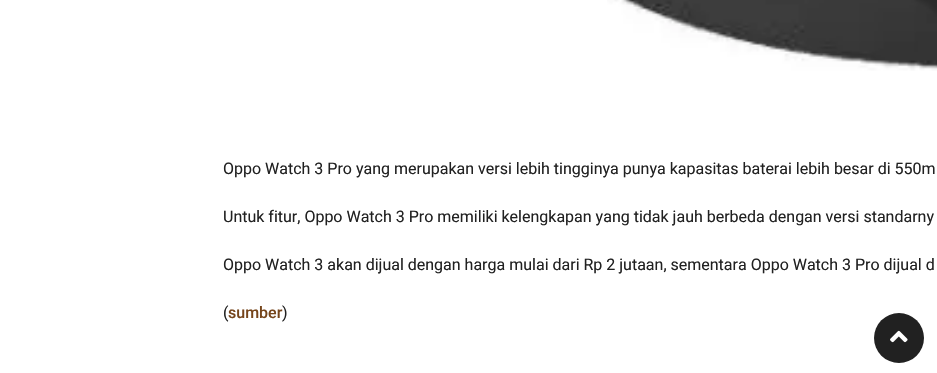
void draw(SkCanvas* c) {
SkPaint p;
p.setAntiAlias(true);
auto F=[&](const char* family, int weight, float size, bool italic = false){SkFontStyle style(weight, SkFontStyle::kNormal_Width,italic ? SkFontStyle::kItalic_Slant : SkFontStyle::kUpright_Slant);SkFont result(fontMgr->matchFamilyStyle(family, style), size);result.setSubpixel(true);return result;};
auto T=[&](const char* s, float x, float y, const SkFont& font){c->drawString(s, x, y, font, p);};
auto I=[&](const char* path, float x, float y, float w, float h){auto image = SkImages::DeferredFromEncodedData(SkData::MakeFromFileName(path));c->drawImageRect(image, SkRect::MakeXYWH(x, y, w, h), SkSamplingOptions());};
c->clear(0xffffffff);
I("1.png",607,0,330,71);
auto f1 = F("Roboto",400,16);
p.setColor(0xff212121);
T("Oppo Watch 3 Pro yang merupakan versi lebih tingginya punya kapasitas baterai lebih besar di 550m",223,174,f1);
T("Untuk fitur, Oppo Watch 3 Pro memiliki kelengkapan yang tidak jauh berbeda dengan versi standarny",223,222,f1);
T("Oppo Watch 3 akan dijual dengan harga mulai dari Rp 2 jutaan, sementara Oppo Watch 3 Pro dijual d",223,270,f1);
T("(",223,318,f1);
auto f2 = F("Roboto",500,16);
p.setColor(0xff76451b);
T("sumber",228,318,f2);
p.setColor(0xff212121);
T(")",282,318,f1);
c->drawCircle(899,338,25,p);
I("2.png",890,330,18,13);
}
